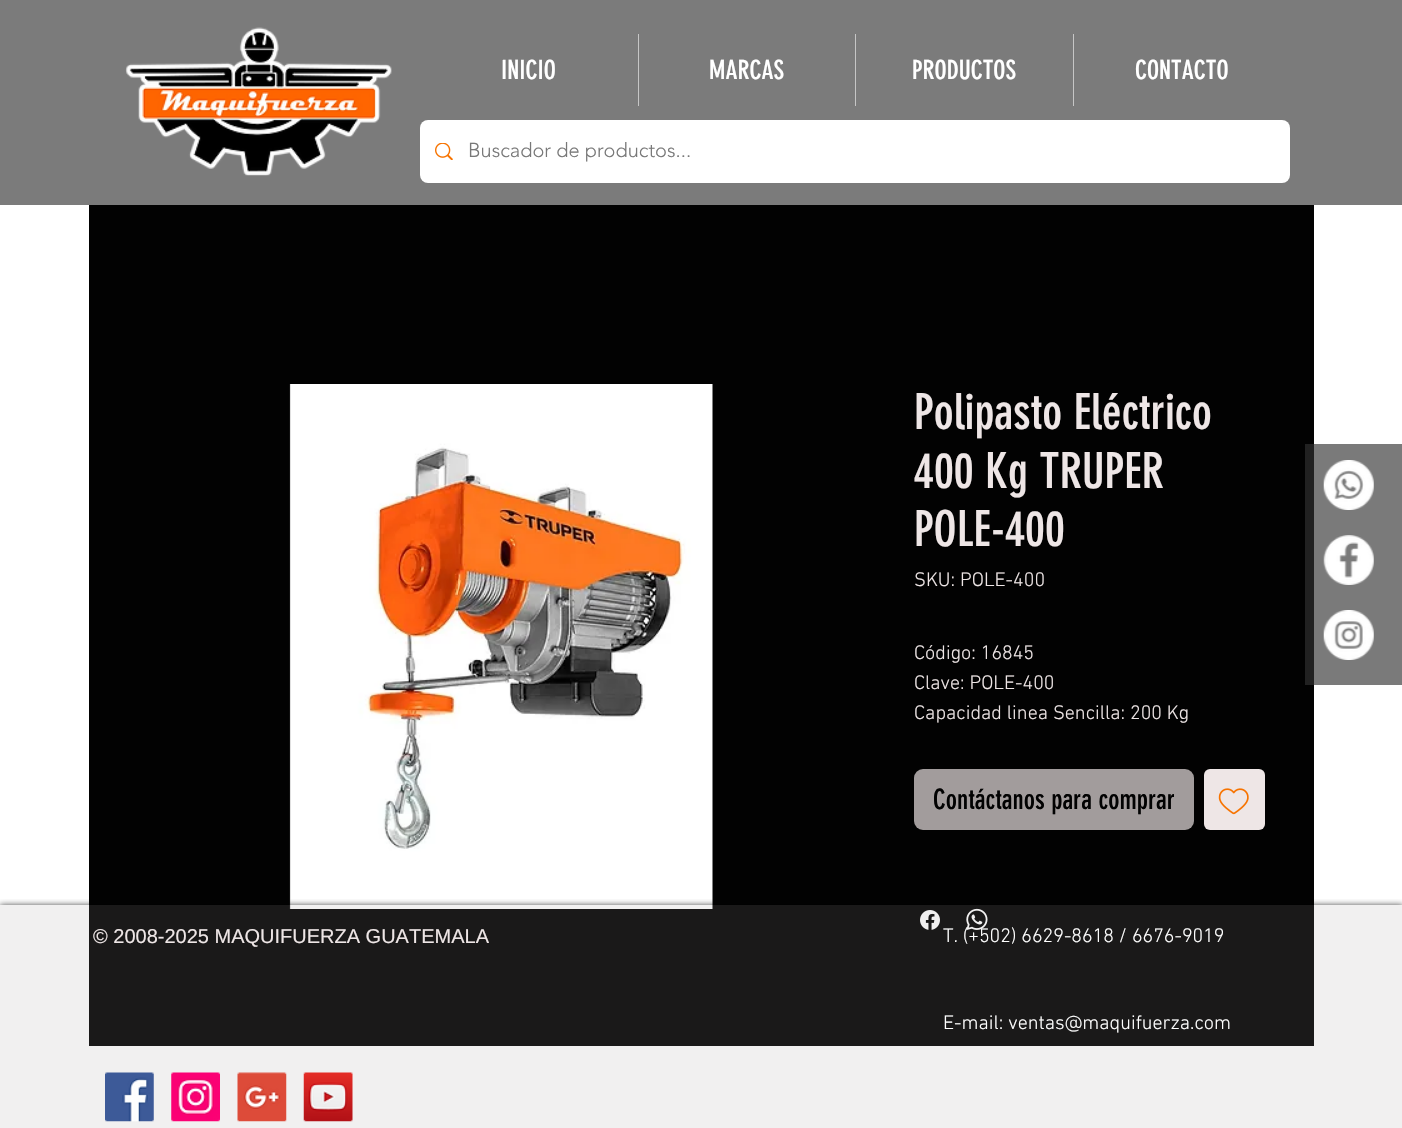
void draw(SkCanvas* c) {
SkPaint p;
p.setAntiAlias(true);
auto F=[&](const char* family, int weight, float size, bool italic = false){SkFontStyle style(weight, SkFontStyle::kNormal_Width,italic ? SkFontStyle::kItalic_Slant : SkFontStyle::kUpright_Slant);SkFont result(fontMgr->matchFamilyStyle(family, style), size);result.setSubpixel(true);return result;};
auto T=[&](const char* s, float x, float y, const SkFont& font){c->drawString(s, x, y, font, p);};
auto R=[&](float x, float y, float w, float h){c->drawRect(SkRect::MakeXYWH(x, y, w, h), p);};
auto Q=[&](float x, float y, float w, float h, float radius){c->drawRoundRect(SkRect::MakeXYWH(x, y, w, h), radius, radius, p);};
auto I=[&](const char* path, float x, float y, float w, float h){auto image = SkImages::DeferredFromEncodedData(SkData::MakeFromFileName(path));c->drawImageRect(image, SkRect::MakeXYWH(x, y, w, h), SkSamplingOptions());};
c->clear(0xffffffff);
p.setColor(0xff7a7a7a);
R(1314,444,88,241);
p.setColor(0xff7b7b7b);
R(0,0,1402,205);
I("1.png",125,27,267,149);
auto f1 = F("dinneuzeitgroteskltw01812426",400,26);
p.setColor(0xffffffff);
T("INICIO",501,79,f1);
p.setColor(0xffc6c6c6);
R(638,34,1,72);
p.setColor(0xffffffff);
T("MARCAS",709,79,f1);
p.setColor(0xffc6c6c6);
R(855,34,1,72);
p.setColor(0xffffffff);
T("PRODUCTOS",912,79,f1);
p.setColor(0xffc6c6c6);
R(1073,34,1,72);
p.setColor(0xffffffff);
T("CONTACTO",1135,79,f1);
Q(420,120,870,63,8);
I("2.png",435,143,18,17);
auto f2 = F("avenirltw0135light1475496",300,20);
p.setColor(0xff787878);
T("Buscador de productos...",468,157,f2);
p.setColor(0xff020202);
R(89,205,1225,841);
p.setColor(0xff212121);
R(1305,444,9,241);
I("3.png",289,384,424,525);
auto f3 = F("dinneuzeitgroteskltw01812426",400,48.75);
p.setColor(0xffeee6e6);
T("Polipasto Eléctrico",914,429,f3);
T("400 Kg TRUPER",914,488,f3);
T("POLE-400",914,546,f3);
auto f4 = F("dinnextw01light",300,20);
T("SKU: POLE-400",914,586,f4);
T("Código: 16845",914,659,f4);
T("Clave: POLE-400",914,689,f4);
T("Capacidad linea Sencilla: 200 Kg",914,719,f4);
p.setColor(0xffa29c9c);
Q(914,769,280,61,9);
auto f5 = F("dinneuzeitgroteskltw01812426",400,27.5);
p.setColor(0xff020202);
T("Contáctanos para comprar",933,809,f5);
p.setColor(0xffeee6e6);
Q(1204,769,61,61,6);
I("4.png",1218,788,31,27);
I("5.png",920,910,20,20);
I("6.png",966,908,22,23);
I("7.png",1323,460,51,50);
I("8.png",1323,535,51,50);
I("9.png",1323,610,51,50);
c->save();
c->clipRect(SkRect::MakeXYWH(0,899,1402,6));
p.setColor(0xb3000000);
p.setMaskFilter(SkMaskFilter::MakeBlur(kNormal_SkBlurStyle, 3));
c->drawRect(SkRect::MakeXYWH(0,905,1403,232),p);
p.setMaskFilter(nullptr);
c->restore();
p.setColor(0x26a29c9c);
R(0,905,1402,223);
auto f6 = F("Liberation Sans",400,20);
p.setColor(0xffeee6e6);
T("© 2008-2025 MAQUIFUERZA GUATEMALA",93,943,f6);
p.setColor(0xffffffff);
T("T. (+502) 6629-8618 / 6676-9019",943,942,f4);
T("E-mail: ventas@maquifuerza.com",943,1029,f4);
I("10.png",105,1072,49,50);
I("11.png",171,1072,49,50);
I("12.png",237,1072,50,50);
I("13.png",303,1072,50,50);
}
